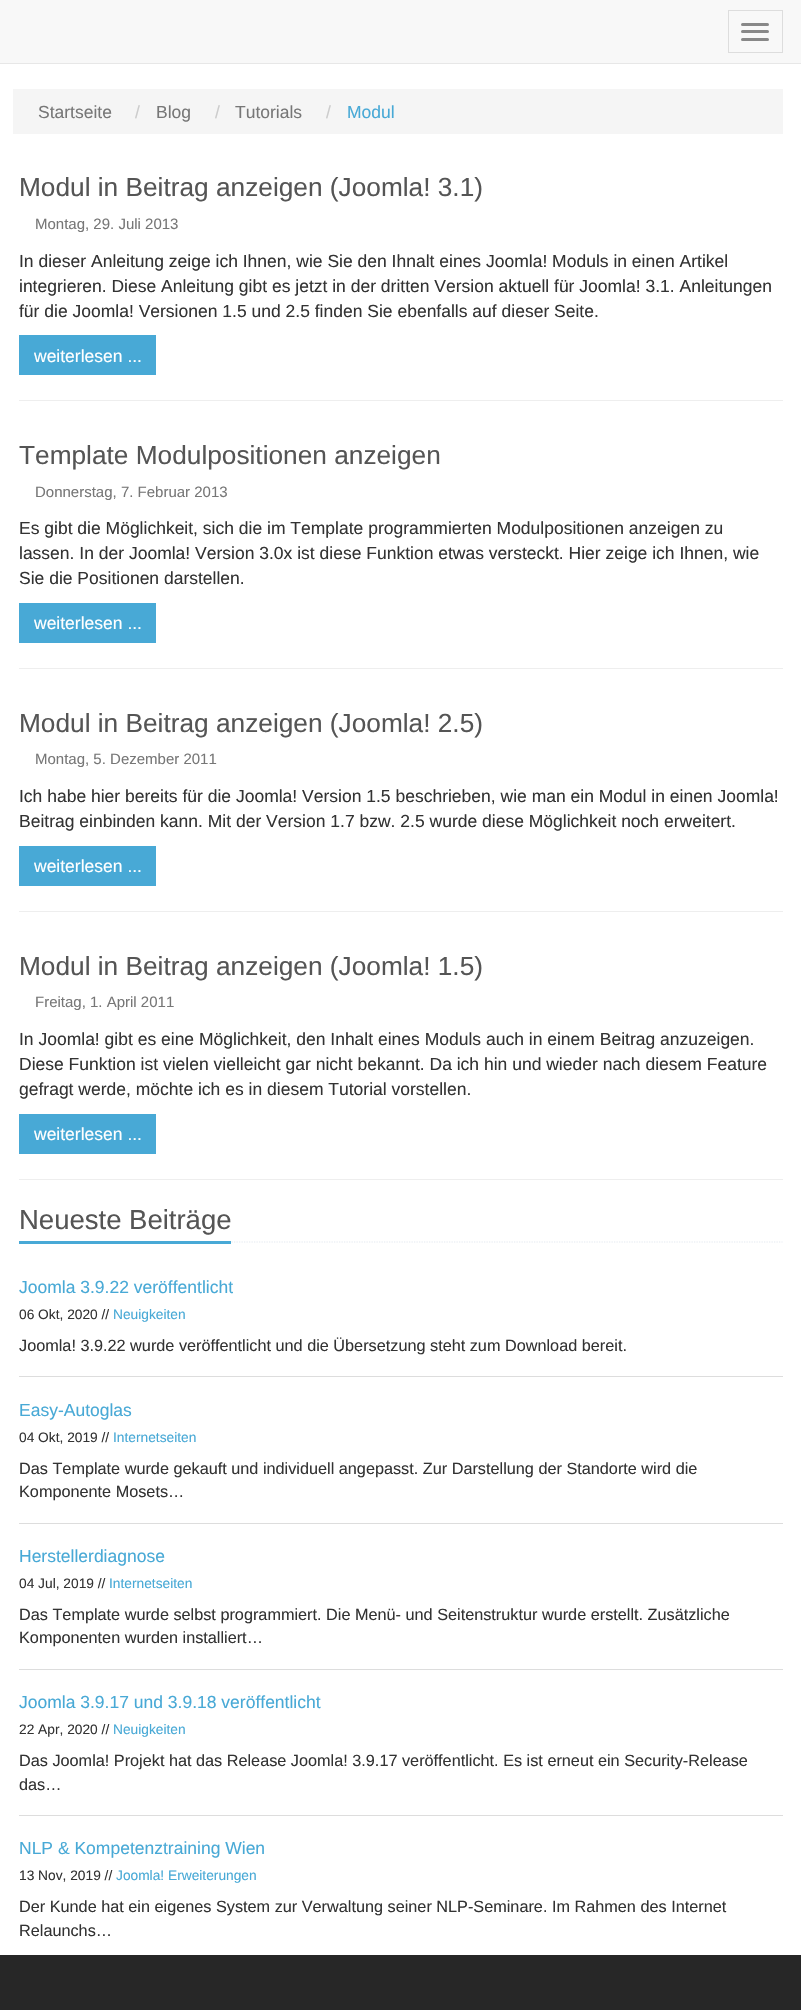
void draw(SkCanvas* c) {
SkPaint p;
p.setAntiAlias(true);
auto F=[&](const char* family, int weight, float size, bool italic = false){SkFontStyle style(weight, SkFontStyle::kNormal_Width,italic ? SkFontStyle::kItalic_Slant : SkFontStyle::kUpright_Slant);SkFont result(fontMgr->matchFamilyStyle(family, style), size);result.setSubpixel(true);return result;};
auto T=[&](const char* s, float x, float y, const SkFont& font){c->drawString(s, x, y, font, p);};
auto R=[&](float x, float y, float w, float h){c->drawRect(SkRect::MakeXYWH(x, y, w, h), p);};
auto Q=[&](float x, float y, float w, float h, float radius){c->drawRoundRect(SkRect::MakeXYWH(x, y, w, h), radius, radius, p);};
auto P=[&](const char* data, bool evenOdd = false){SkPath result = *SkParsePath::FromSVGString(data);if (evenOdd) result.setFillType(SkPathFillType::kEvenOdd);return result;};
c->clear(0xffffffff);
p.setColor(0xfff8f8f8);
R(0,0,801,63);
p.setColor(0xffe7e7e7);
R(0,63,801,1);
p.setStroke(true);
p.setStrokeWidth(1);
p.setColor(0xffdddddd);
c->drawRect(SkRect::MakeXYWH(728.5,10.5,54,42),p);
p.setStroke(false);
p.setColor(0xff888888);
Q(741,23,28,3,1.5);
Q(741,30,28,3,1.5);
Q(741,38,28,3,1.5);
p.setColor(0xfff5f5f5);
R(13,89,770,45);
auto f1 = F("Liberation Sans",400,17.5);
p.setColor(0xff777777);
T("Startseite",38,118,f1);
p.setColor(0xffcccccc);
T("/",135,118,f1);
p.setColor(0xff777777);
T("Blog",156,118,f1);
p.setColor(0xffcccccc);
T("/",215,118,f1);
p.setColor(0xff777777);
T("Tutorials",235,118,f1);
p.setColor(0xffcccccc);
T("/",326,118,f1);
p.setColor(0xff48a9d6);
T("Modul",347,118,f1);
auto f2 = F("Liberation Sans",400,26.25);
p.setColor(0xff555555);
T("Modul in Beitrag anzeigen (Joomla! 3.1)",19,196,f2);
auto f3 = F("Liberation Sans",400,15);
p.setColor(0xff777777);
T("Montag, 29. Juli 2013",35,229,f3);
p.setColor(0xff333333);
T("In dieser Anleitung zeige ich Ihnen, wie Sie den Ihnalt eines Joomla! Moduls in einen Artikel",19,267,f1);
T("integrieren. Diese Anleitung gibt es jetzt in der dritten Version aktuell für Joomla! 3.1. Anleitungen",19,292,f1);
T("für die Joomla! Versionen 1.5 und 2.5 finden Sie ebenfalls auf dieser Seite.",19,317,f1);
p.setColor(0xff48a9d6);
R(19,335,137,40);
p.setColor(0xffffffff);
T("weiterlesen ...",34,362,f1);
p.setColor(0xffeeeeee);
R(19,400,764,1);
p.setColor(0xff555555);
T("Template Modulpositionen anzeigen",19,464,f2);
p.setColor(0xff777777);
T("Donnerstag, 7. Februar 2013",35,497,f3);
p.setColor(0xff333333);
T("Es gibt die Möglichkeit, sich die im Template programmierten Modulpositionen anzeigen zu",19,534,f1);
T("lassen. In der Joomla! Version 3.0x ist diese Funktion etwas versteckt. Hier zeige ich Ihnen, wie",19,559,f1);
T("Sie die Positionen darstellen.",19,584,f1);
p.setColor(0xff48a9d6);
R(19,603,137,40);
p.setColor(0xffffffff);
T("weiterlesen ...",34,629,f1);
p.setColor(0xffeeeeee);
R(19,668,764,1);
p.setColor(0xff555555);
T("Modul in Beitrag anzeigen (Joomla! 2.5)",19,732,f2);
p.setColor(0xff777777);
T("Montag, 5. Dezember 2011",35,764,f3);
p.setColor(0xff333333);
T("Ich habe hier bereits für die Joomla! Version 1.5 beschrieben, wie man ein Modul in einen Joomla!",19,802,f1);
T("Beitrag einbinden kann. Mit der Version 1.7 bzw. 2.5 wurde diese Möglichkeit noch erweitert.",19,827,f1);
p.setColor(0xff48a9d6);
R(19,846,137,40);
p.setColor(0xffffffff);
T("weiterlesen ...",34,872,f1);
p.setColor(0xffeeeeee);
R(19,911,764,1);
p.setColor(0xff555555);
T("Modul in Beitrag anzeigen (Joomla! 1.5)",19,975,f2);
p.setColor(0xff777777);
T("Freitag, 1. April 2011",35,1007,f3);
p.setColor(0xff333333);
T("In Joomla! gibt es eine Möglichkeit, den Inhalt eines Moduls auch in einem Beitrag anzuzeigen.",19,1045,f1);
T("Diese Funktion ist vielen vielleicht gar nicht bekannt. Da ich hin und wieder nach diesem Feature",19,1070,f1);
T("gefragt werde, möchte ich es in diesem Tutorial vorstellen.",19,1095,f1);
p.setColor(0xff48a9d6);
R(19,1114,137,40);
p.setColor(0xffffffff);
T("weiterlesen ...",34,1140,f1);
p.setColor(0xffeeeeee);
R(19,1179,764,1);
p.setStroke(true);
p.setStrokeWidth(1.2);
p.setColor(0xffe4e9f0);
p.setPathEffect(SkDashPathEffect::Make({{1.25f,1.25f}}, 0));
c->drawPath(P("M19 1242h763.5"),p);
p.setPathEffect(nullptr);
p.setStroke(false);
p.setColor(0xff48a9d6);
R(19,1241,212,3);
auto f4 = F("Liberation Sans",400,27.5);
p.setColor(0xff555555);
T("Neueste Beiträge",19,1229,f4);
p.setColor(0xff48a9d6);
T("Joomla 3.9.22 veröffentlicht",19,1293,f1);
auto f5 = F("Liberation Sans",400,13.75);
p.setColor(0xff333333);
T("06 Okt, 2020 //",19,1319,f5);
p.setColor(0xff48a9d6);
T("Neuigkeiten",113,1319,f5);
auto f6 = F("Liberation Sans",400,16.25);
p.setColor(0xff333333);
T("Joomla! 3.9.22 wurde veröffentlicht und die Übersetzung steht zum Download bereit.",19,1351,f6);
p.setColor(0xffdddddd);
R(19,1376,764,1);
p.setColor(0xff48a9d6);
T("Easy-Autoglas",19,1416,f1);
p.setColor(0xff333333);
T("04 Okt, 2019 //",19,1442,f5);
p.setColor(0xff48a9d6);
T("Internetseiten",113,1442,f5);
p.setColor(0xff333333);
T("Das Template wurde gekauft und individuell angepasst. Zur Darstellung der Standorte wird die",19,1474,f6);
T("Komponente Mosets…",19,1497,f6);
p.setColor(0xffdddddd);
R(19,1523,764,1);
p.setColor(0xff48a9d6);
T("Herstellerdiagnose",19,1562,f1);
p.setColor(0xff333333);
T("04 Jul, 2019 //",19,1588,f5);
p.setColor(0xff48a9d6);
T("Internetseiten",109,1588,f5);
p.setColor(0xff333333);
T("Das Template wurde selbst programmiert. Die Menü- und Seitenstruktur wurde erstellt. Zusätzliche",19,1620,f6);
T("Komponenten wurden installiert…",19,1643,f6);
p.setColor(0xffdddddd);
R(19,1669,764,1);
p.setColor(0xff48a9d6);
T("Joomla 3.9.17 und 3.9.18 veröffentlicht",19,1708,f1);
p.setColor(0xff333333);
T("22 Apr, 2020 //",19,1734,f5);
p.setColor(0xff48a9d6);
T("Neuigkeiten",113,1734,f5);
p.setColor(0xff333333);
T("Das Joomla! Projekt hat das Release Joomla! 3.9.17 veröffentlicht. Es ist erneut ein Security-Release",19,1766,f6);
T("das…",19,1790,f6);
p.setColor(0xffdddddd);
R(19,1815,764,1);
p.setColor(0xff48a9d6);
T("NLP & Kompetenztraining Wien",19,1854,f1);
p.setColor(0xff333333);
T("13 Nov, 2019 //",19,1880,f5);
p.setColor(0xff48a9d6);
T("Joomla! Erweiterungen",116,1880,f5);
p.setColor(0xff333333);
T("Der Kunde hat ein eigenes System zur Verwaltung seiner NLP-Seminare. Im Rahmen des Internet",19,1912,f6);
T("Relaunchs…",19,1936,f6);
p.setColor(0xff272727);
R(0,1955,801,55);
}
